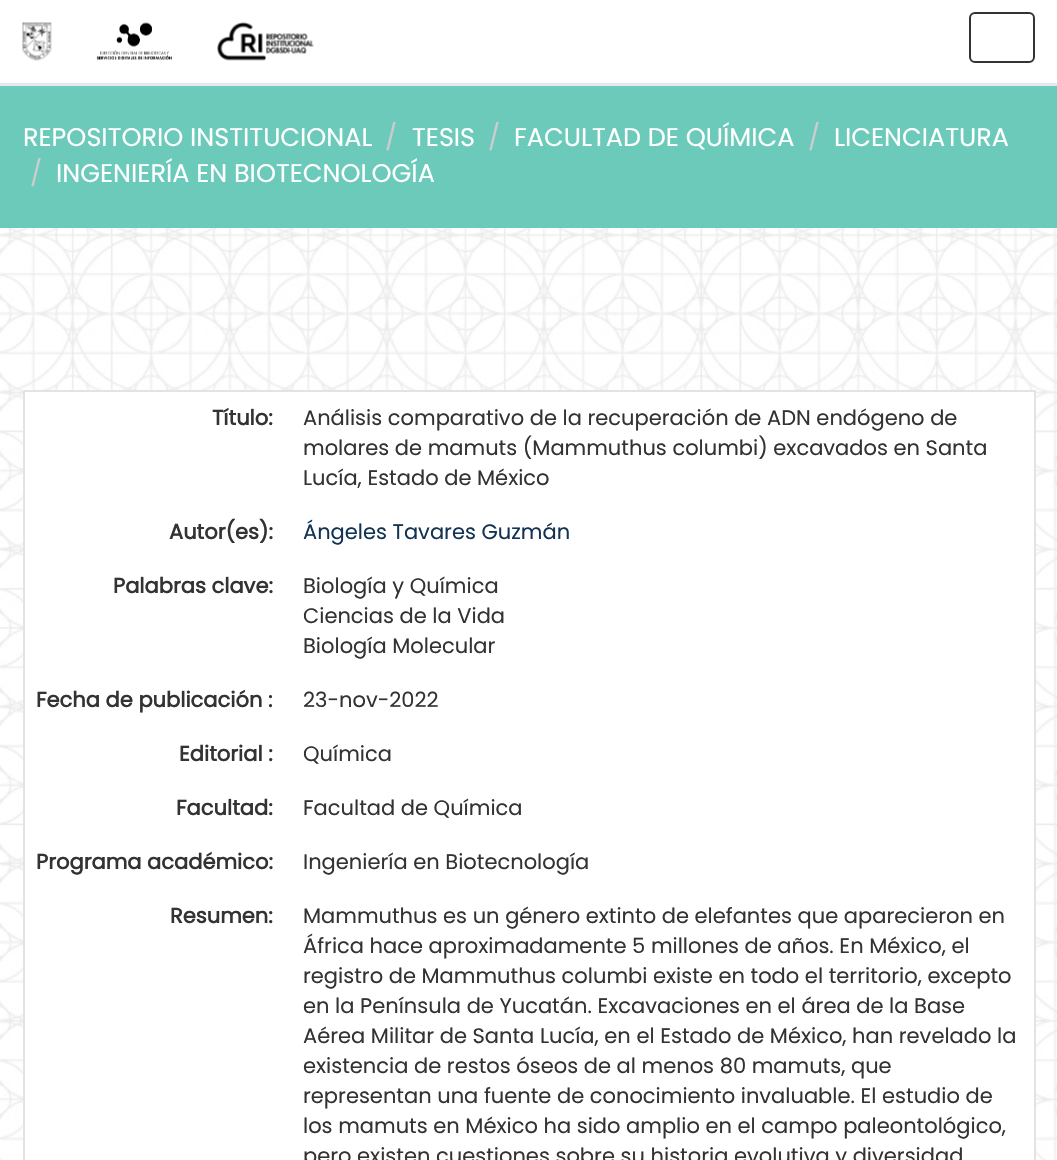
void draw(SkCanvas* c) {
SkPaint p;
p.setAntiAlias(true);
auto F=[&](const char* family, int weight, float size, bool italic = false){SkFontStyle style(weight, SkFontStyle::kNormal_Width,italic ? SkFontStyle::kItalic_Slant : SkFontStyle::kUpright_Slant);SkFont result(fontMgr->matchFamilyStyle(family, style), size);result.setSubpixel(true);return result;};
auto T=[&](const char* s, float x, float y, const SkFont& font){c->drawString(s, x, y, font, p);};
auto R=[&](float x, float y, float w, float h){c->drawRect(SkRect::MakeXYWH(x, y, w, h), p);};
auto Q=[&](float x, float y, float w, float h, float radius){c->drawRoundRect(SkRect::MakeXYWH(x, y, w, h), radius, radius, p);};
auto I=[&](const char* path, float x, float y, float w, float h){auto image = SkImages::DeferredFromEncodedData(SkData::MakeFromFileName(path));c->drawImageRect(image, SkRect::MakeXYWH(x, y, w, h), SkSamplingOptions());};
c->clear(0xffffffff);
p.setColor(0xffe5e9ed);
R(0,83,1057,3);
I("1.png",22,22,30,39);
I("2.png",96,22,76,38);
I("3.png",217,22,97,39);
p.setStroke(true);
p.setStrokeWidth(2);
p.setColor(0xff333333);
c->drawRoundRect(SkRect::MakeXYWH(970,13,64,49),5,5,p);
I("4.png",0,228,1057,932);
p.setStroke(false);
p.setColor(0xff6bcaba);
R(0,86,1057,142);
auto f1 = F("Poppins",400,25.5);
p.setColor(0xffffffff);
T("REPOSITORIO INSTITUCIONAL",23,146,f1);
p.setColor(0xffcccccc);
T("/",385,146,f1);
p.setColor(0xffffffff);
T("TESIS",412,146,f1);
p.setColor(0xffcccccc);
T("/",488,146,f1);
p.setColor(0xffffffff);
T("FACULTAD DE QUÍMICA",514,146,f1);
p.setColor(0xffcccccc);
T("/",808,146,f1);
p.setColor(0xffffffff);
T("LICENCIATURA",834,146,f1);
p.setColor(0xffcccccc);
T("/",30,182,f1);
p.setColor(0xffffffff);
T("INGENIERÍA EN BIOTECNOLOGÍA",56,182,f1);
Q(23,390,1012,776,6);
p.setColor(0xffe3e3e3);
R(23,390,1012,2);
R(1034,390,2,770);
R(23,390,2,770);
auto f2 = F("Poppins",700,21);
p.setColor(0xff333333);
T("Título:",212,425,f2);
auto f3 = F("Poppins",400,21);
T("Análisis comparativo de la recuperación de ADN endógeno de",303,425,f3);
T("molares de mamuts (Mammuthus columbi) excavados en Santa",303,455,f3);
T("Lucía, Estado de México",303,485,f3);
T("Autor(es):",169,539,f2);
p.setColor(0xff123452);
T("Ángeles Tavares Guzmán",303,539,f3);
p.setColor(0xff333333);
T("Palabras clave:",113,593,f2);
T("Biología y Química",303,593,f3);
T("Ciencias de la Vida",303,623,f3);
T("Biología Molecular",303,653,f3);
T("Fecha de publicación :",36,707,f2);
T("23-nov-2022",303,707,f3);
T("Editorial :",179,761,f2);
T("Química",303,761,f3);
T("Facultad:",176,815,f2);
T("Facultad de Química",303,815,f3);
T("Programa académico:",36,869,f2);
T("Ingeniería en Biotecnología",303,869,f3);
T("Resumen:",170,923,f2);
T("Mammuthus es un género extinto de elefantes que aparecieron en",303,923,f3);
T("África hace aproximadamente 5 millones de años. En México, el",303,953,f3);
T("registro de Mammuthus columbi existe en todo el territorio, excepto",303,983,f3);
T("en la Península de Yucatán. Excavaciones en el área de la Base",303,1013,f3);
T("Aérea Militar de Santa Lucía, en el Estado de México, han revelado la",303,1043,f3);
T("existencia de restos óseos de al menos 80 mamuts, que",303,1073,f3);
T("representan una fuente de conocimiento invaluable. El estudio de",303,1103,f3);
T("los mamuts en México ha sido amplio en el campo paleontológico,",303,1133,f3);
T("pero existen cuestiones sobre su historia evolutiva y diversidad",303,1163,f3);
}
